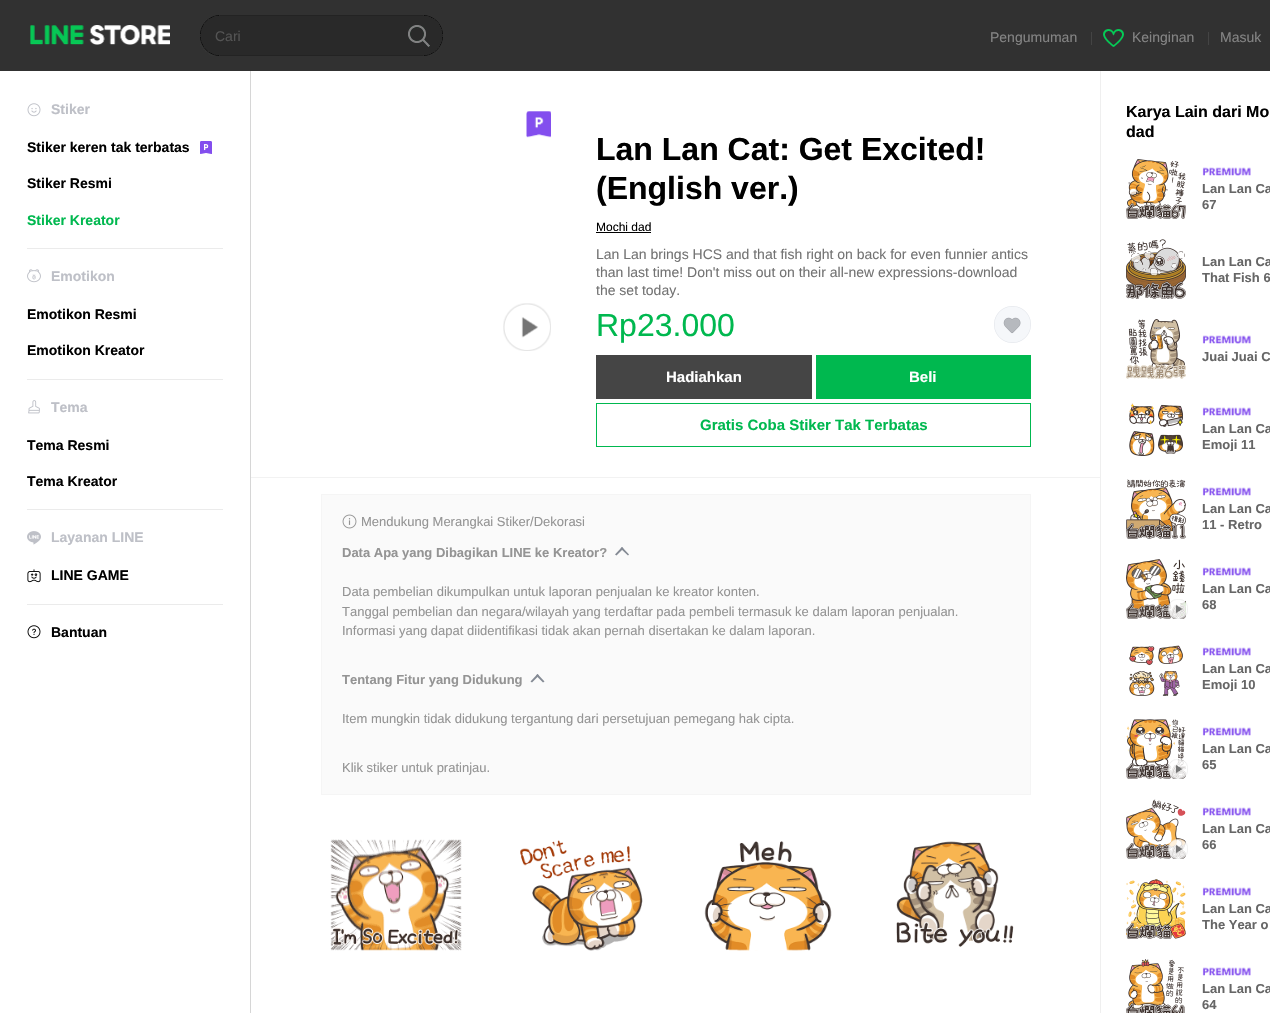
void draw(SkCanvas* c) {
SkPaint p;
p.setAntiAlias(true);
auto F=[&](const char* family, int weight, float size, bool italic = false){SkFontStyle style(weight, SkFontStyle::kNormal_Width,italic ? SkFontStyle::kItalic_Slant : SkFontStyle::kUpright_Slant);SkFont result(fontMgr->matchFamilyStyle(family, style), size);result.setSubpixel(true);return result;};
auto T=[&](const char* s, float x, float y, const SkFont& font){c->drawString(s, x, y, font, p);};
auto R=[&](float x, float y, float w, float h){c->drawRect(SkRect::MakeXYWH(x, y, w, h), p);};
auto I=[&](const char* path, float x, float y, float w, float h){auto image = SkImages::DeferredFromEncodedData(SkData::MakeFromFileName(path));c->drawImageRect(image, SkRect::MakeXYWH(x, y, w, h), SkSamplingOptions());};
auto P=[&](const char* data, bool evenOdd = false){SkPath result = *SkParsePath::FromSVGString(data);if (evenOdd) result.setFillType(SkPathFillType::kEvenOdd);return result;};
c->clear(0xffffffff);
p.setColor(0xff313131);
R(0,0,1270,71);
I("1.png",30,25,140,20);
I("2.png",200,15,243,41);
auto f1 = F("Liberation Sans",400,14);
p.setColor(0xff545454);
T("Cari",215,41,f1);
I("3.png",408,25,22,22);
p.setColor(0xff848484);
T("Pengumuman",990,42,f1);
p.setColor(0xff444444);
R(1091,32,1,13);
I("4.png",1103,29,21,18);
p.setColor(0xff848484);
T("Keinginan",1132,42,f1);
p.setColor(0xff444444);
R(1208,32,1,13);
p.setColor(0xff848484);
T("Masuk",1220,42,f1);
I("5.png",27,103,14,14);
auto f2 = F("Liberation Sans",700,14);
p.setColor(0xffbec0c7);
T("Stiker",51,114,f2);
p.setColor(0xff000000);
T("Stiker keren tak terbatas",27,152,f2);
I("6.png",200,141,12,13);
T("Stiker Resmi",27,188,f2);
p.setColor(0xff00b84f);
T("Stiker Kreator",27,225,f2);
p.setColor(0xffebebeb);
R(27,248,196,1);
I("7.png",27,269,14,14);
p.setColor(0xffbec0c7);
T("Emotikon",51,281,f2);
p.setColor(0xff000000);
T("Emotikon Resmi",27,319,f2);
T("Emotikon Kreator",27,355,f2);
p.setColor(0xffebebeb);
R(27,379,196,1);
I("8.png",28,400,12,14);
p.setColor(0xffbec0c7);
T("Tema",51,412,f2);
p.setColor(0xff000000);
T("Tema Resmi",27,450,f2);
T("Tema Kreator",27,486,f2);
p.setColor(0xffebebeb);
R(27,509,196,1);
I("9.png",27,531,14,14);
p.setColor(0xffbec0c7);
T("Layanan LINE",51,542,f2);
I("10.png",27,569,14,14);
p.setColor(0xff000000);
T("LINE GAME",51,580,f2);
p.setColor(0xffebebeb);
R(27,604,196,1);
I("11.png",27,625,14,14);
p.setColor(0xff000000);
T("Bantuan",51,637,f2);
p.setColor(0xffd6d6d6);
R(250,71,1,942);
I("12.png",526,111,25,27);
I("13.png",503,303,48,48);
auto f3 = F("Liberation Sans",700,32);
p.setColor(0xff000000);
T("Lan Lan Cat: Get Excited!",596,160,f3);
T("(English ver.)",596,199,f3);
auto f4 = F("Liberation Sans",400,12);
T("Mochi dad",596,231,f4);
R(596,232,55,1);
p.setColor(0xff737373);
T("Lan Lan brings HCS and that fish right on back for even funnier antics",596,259,f1);
T("than last time! Don't miss out on their all-new expressions-download",596,277,f1);
T("the set today.",596,295,f1);
auto f5 = F("Liberation Sans",400,32);
p.setColor(0xff00b84f);
T("Rp23.000",596,336,f5);
I("14.png",994,306,37,37);
p.setColor(0xff454545);
R(596,355,216,44);
auto f6 = F("Liberation Sans",700,15);
p.setColor(0xffffffff);
T("Hadiahkan",666,382,f6);
p.setColor(0xff00b84f);
R(816,355,215,44);
p.setColor(0xffffffff);
T("Beli",909,382,f6);
p.setStroke(true);
p.setStrokeWidth(1);
p.setColor(0xff00b84f);
c->drawRect(SkRect::MakeXYWH(596.5,403.5,434,43),p);
p.setStroke(false);
T("Gratis Coba Stiker Tak Terbatas",700,430,f6);
p.setColor(0xfff2f2f2);
R(251,477,850,1);
p.setColor(0xffefefef);
R(1100,71,1,942);
p.setColor(0xfffafafa);
c->drawRect(SkRect::MakeXYWH(321.5,494.5,709,300),p);
p.setStroke(true);
p.setColor(0xfff5f5f5);
c->drawRect(SkRect::MakeXYWH(321.5,494.5,709,300),p);
I("15.png",342,514,15,15);
auto f7 = F("Liberation Sans",400,13);
p.setStroke(false);
p.setColor(0xff949494);
T("Mendukung Merangkai Stiker/Dekorasi",361,526,f7);
auto f8 = F("Liberation Sans",700,13);
T("Data Apa yang Dibagikan LINE ke Kreator?",342,557,f8);
p.setColor(0xff848a94);
c->drawPath(P("M615 554.5l7-7.5l1.5 1.5l-7 7z"),p);
c->drawPath(P("M620.5 548.5l1.5-1.5l7 7.5l-1 1z"),p);
p.setColor(0xff949494);
T("Data pembelian dikumpulkan untuk laporan penjualan ke kreator konten.",342,596,f7);
T("Tanggal pembelian dan negara/wilayah yang terdaftar pada pembeli termasuk ke dalam laporan penjualan.",342,616,f7);
T("Informasi yang dapat diidentifikasi tidak akan pernah disertakan ke dalam laporan.",342,635,f7);
T("Tentang Fitur yang Didukung",342,684,f8);
p.setColor(0xff848a94);
c->drawPath(P("M530.5 681.5l7-7.5l1.5 1.5l-7 7z"),p);
c->drawPath(P("M536 675.5l1.5-1.5l7 7.5l-1.5 1z"),p);
p.setColor(0xff949494);
T("Item mungkin tidak didukung tergantung dari persetujuan pemegang hak cipta.",342,723,f7);
T("Klik stiker untuk pratinjau.",342,772,f7);
I("16.png",330,839,132,112);
I("17.png",520,840,123,111);
I("18.png",704,841,128,110);
I("19.png",896,841,118,106);
auto f9 = F("Liberation Sans",700,16);
p.setColor(0xff000000);
T("Karya Lain dari Mo",1126,117,f9);
T("dad",1126,137,f9);
I("20.png",1126,159,60,60);
I("21.png",1202,167,49,9);
p.setColor(0xff666666);
T("Lan Lan Ca",1202,193,f8);
T("67",1202,209,f8);
I("22.png",1126,239,60,60);
T("Lan Lan Ca",1202,266,f8);
T("That Fish 6",1202,282,f8);
I("23.png",1126,319,60,60);
I("21.png",1202,335,49,9);
T("Juai Juai C",1202,361,f8);
I("24.png",1129,403,54,53);
I("21.png",1202,407,49,9);
T("Lan Lan Ca",1202,433,f8);
c->save();
c->clipRect(SkRect::MakeXYWH(1202,421,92,30));
T("Emoji 11",1202,449,f8);
c->restore();
I("25.png",1126,479,60,60);
I("21.png",1202,487,49,9);
T("Lan Lan Ca",1202,513,f8);
T("11 - Retro",1202,529,f8);
I("26.png",1126,559,60,60);
I("27.png",1167,599,21,20);
I("21.png",1202,567,49,9);
T("Lan Lan Ca",1202,593,f8);
T("68",1202,609,f8);
I("28.png",1129,645,54,51);
I("21.png",1202,647,49,9);
T("Lan Lan Ca",1202,673,f8);
c->save();
c->clipRect(SkRect::MakeXYWH(1202,661,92,30));
T("Emoji 10",1202,689,f8);
c->restore();
I("29.png",1126,719,60,60);
I("30.png",1167,759,21,20);
I("21.png",1202,727,49,9);
T("Lan Lan Ca",1202,753,f8);
T("65",1202,769,f8);
I("31.png",1126,799,60,60);
I("32.png",1167,838,21,21);
I("21.png",1202,807,49,9);
T("Lan Lan Ca",1202,833,f8);
T("66",1202,849,f8);
I("33.png",1126,879,60,60);
I("21.png",1202,887,49,9);
T("Lan Lan Ca",1202,913,f8);
T("The Year o",1202,929,f8);
I("34.png",1126,959,59,54);
I("21.png",1202,967,49,9);
T("Lan Lan Ca",1202,993,f8);
T("64",1202,1009,f8);
}
